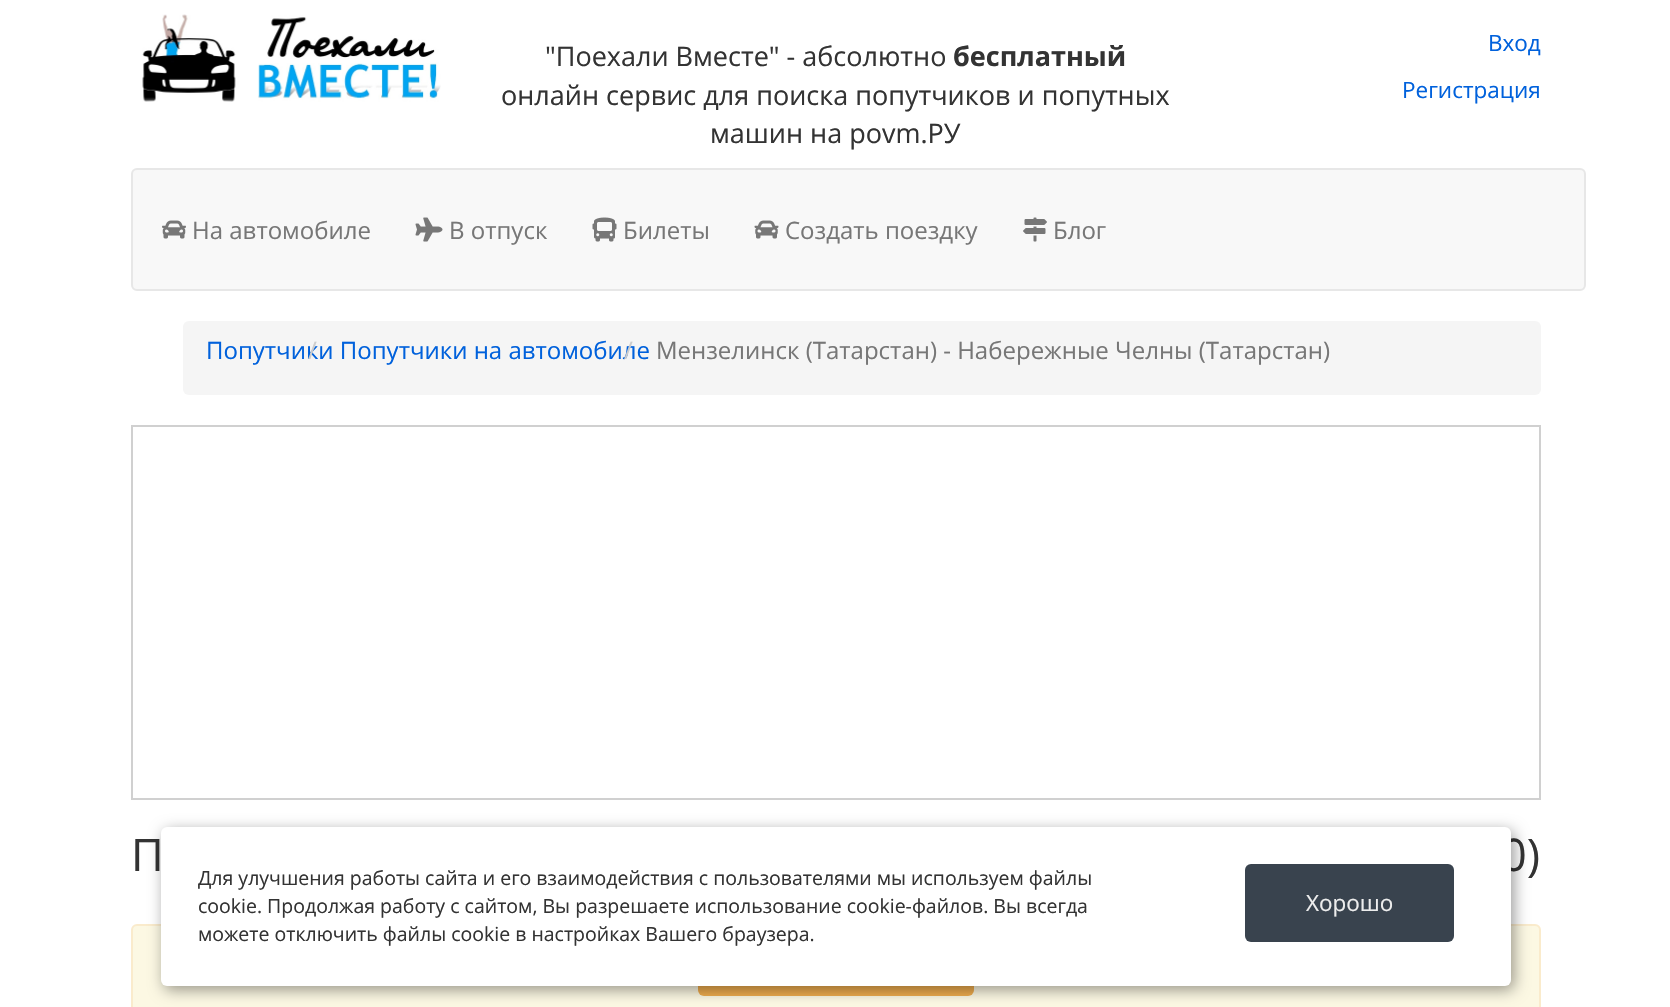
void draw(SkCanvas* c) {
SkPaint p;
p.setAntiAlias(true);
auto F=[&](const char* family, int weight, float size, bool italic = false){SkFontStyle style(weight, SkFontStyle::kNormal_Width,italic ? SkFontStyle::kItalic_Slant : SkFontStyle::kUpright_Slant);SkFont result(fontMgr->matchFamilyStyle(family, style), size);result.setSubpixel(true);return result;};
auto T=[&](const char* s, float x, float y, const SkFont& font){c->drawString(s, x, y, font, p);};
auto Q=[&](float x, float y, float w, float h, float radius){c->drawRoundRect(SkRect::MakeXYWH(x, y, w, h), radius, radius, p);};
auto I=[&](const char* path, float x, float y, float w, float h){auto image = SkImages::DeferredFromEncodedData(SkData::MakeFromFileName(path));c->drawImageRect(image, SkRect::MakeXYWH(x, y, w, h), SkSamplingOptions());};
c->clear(0xffffffff);
I("1.png",142,14,299,88);
auto f1 = F("Open Sans",400,27);
p.setColor(0xff333333);
T("\"Поехали Вместе\" - абсолютно",545,66,f1);
auto f2 = F("Open Sans",700,27);
T("бесплатный",953,66,f2);
T("онлайн сервис для поиска попутчиков и попутных",501,105,f1);
T("машин на povm.РУ",710,143,f1);
auto f3 = F("Open Sans",400,22.5);
p.setColor(0xff0061dc);
T("Вход",1488,51,f3);
T("Регистрация",1402,98,f3);
p.setColor(0xfff8f8f8);
c->drawRoundRect(SkRect::MakeXYWH(132,169,1453,121),5,5,p);
p.setStroke(true);
p.setStrokeWidth(2);
p.setColor(0xffe7e7e7);
c->drawRoundRect(SkRect::MakeXYWH(132,169,1453,121),5,5,p);
I("2.png",162,220,24,19);
auto f4 = F("Open Sans",400,24);
p.setStroke(false);
p.setColor(0xff777777);
T("На автомобиле",192,239,f4);
I("3.png",415,217,28,25);
T("В отпуск",449,239,f4);
I("4.png",592,217,25,25);
T("Билеты",623,239,f4);
I("5.png",754,220,25,19);
T("Создать поездку",785,239,f4);
I("6.png",1023,217,24,25);
T("Блог",1053,239,f4);
p.setColor(0xfff5f5f5);
Q(183,321,1358,74,6);
p.setColor(0xff0061dc);
T("Попутчики Попутчики на автомобиле",206,359,f4);
p.setColor(0xffcccccc);
T("/",624,359,f4);
p.setColor(0xff777777);
T("Мензелинск (Татарстан) - Набережные Челны (Татарстан)",656,359,f4);
p.setColor(0xffcccccc);
T("/",308,359,f4);
p.setStroke(true);
p.setColor(0xffd0d0d0);
c->drawRect(SkRect::MakeXYWH(132,426,1408,373),p);
auto f5 = F("Open Sans",400,45);
p.setStroke(false);
p.setColor(0xff333333);
T("П",131,871,f5);
T("0)",1501,871,f5);
p.setColor(0xfffcf8e3);
c->drawRoundRect(SkRect::MakeXYWH(132,925,1408,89),5,5,p);
p.setStroke(true);
p.setColor(0xfffaebcc);
c->drawRoundRect(SkRect::MakeXYWH(132,925,1408,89),5,5,p);
p.setStroke(false);
p.setColor(0xfff0ad4e);
Q(698,951,276,45,6);
p.setColor(0x66000000);
p.setMaskFilter(SkMaskFilter::MakeBlur(kNormal_SkBlurStyle, 7.5));
c->drawRoundRect(SkRect::MakeXYWH(164,831,1350,159),6,6,p);
p.setMaskFilter(nullptr);
p.setColor(0xffffffff);
Q(161,827,1350,159,6);
auto f6 = F("Open Sans",400,19.5);
p.setColor(0xff333333);
T("Для улучшения работы сайта и его взаимодействия с пользователями мы используем файлы",198,885,f6);
T("cookie. Продолжая работу с сайтом, Вы разрешаете использование cookie-файлов. Вы всегда",198,913,f6);
T("можете отключить файлы cookie в настройках Вашего браузера.",198,941,f6);
p.setColor(0xff39434e);
Q(1245,864,209,78,6);
p.setColor(0xffededed);
T("Хорошо",1306,911,f3);
}
